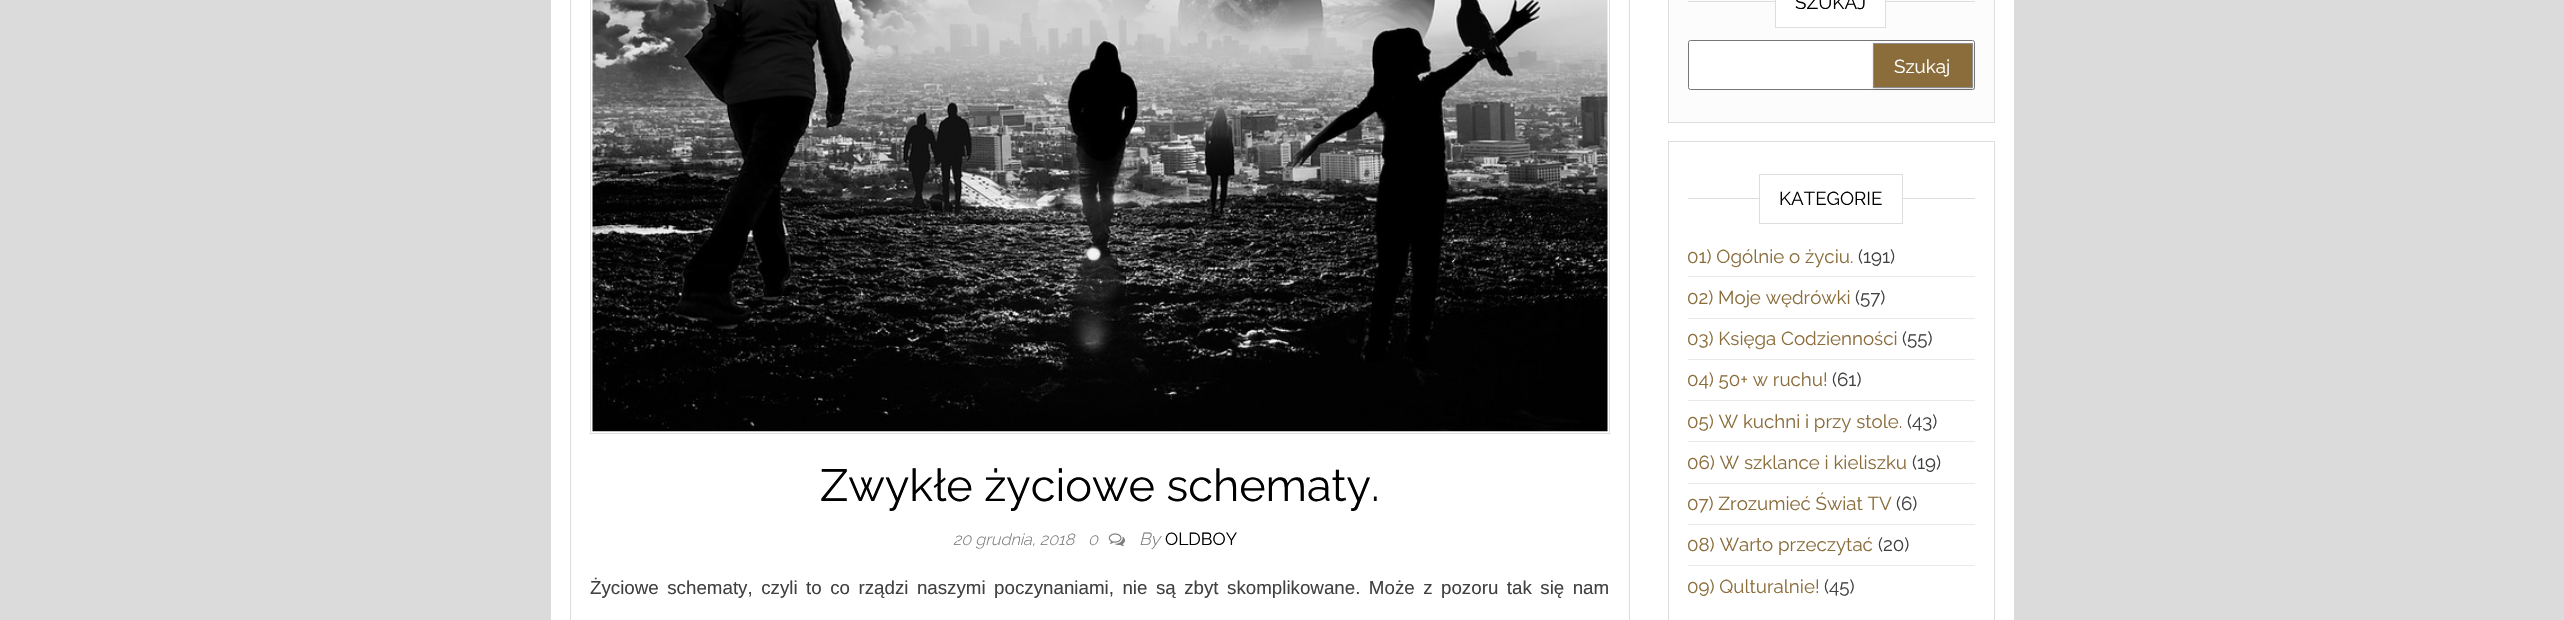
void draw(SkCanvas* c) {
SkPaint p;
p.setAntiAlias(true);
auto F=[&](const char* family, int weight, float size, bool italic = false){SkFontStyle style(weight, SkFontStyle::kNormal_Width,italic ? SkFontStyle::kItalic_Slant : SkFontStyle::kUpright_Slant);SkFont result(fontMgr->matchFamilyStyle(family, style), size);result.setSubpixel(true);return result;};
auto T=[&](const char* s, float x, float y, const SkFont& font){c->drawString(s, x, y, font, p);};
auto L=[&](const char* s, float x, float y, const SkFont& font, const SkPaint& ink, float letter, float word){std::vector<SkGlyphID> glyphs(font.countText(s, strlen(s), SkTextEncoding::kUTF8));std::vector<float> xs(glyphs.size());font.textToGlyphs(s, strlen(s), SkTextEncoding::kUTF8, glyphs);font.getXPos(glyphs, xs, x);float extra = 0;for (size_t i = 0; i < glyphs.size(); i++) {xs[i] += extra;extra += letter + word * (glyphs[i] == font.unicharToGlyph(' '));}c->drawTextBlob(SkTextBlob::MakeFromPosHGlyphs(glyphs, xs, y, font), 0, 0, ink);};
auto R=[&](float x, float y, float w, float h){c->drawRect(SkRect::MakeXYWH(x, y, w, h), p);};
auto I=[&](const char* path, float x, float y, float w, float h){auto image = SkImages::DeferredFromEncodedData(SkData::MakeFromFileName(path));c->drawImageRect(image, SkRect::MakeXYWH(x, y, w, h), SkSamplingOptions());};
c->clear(0xffdbdbdb);
p.setColor(0xffffffff);
R(551,0,1463,620);
p.setStroke(true);
p.setStrokeWidth(1);
p.setColor(0xffdddddd);
c->drawRect(SkRect::MakeXYWH(570.5,-.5,1059,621),p);
c->drawRect(SkRect::MakeXYWH(590.5,-.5,1019,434),p);
I("1.png",592,0,1016,432);
auto f1 = F("Raleway",400,45);
p.setStroke(false);
p.setColor(0xff000000);
T("Zwykłe życiowe schematy.",820,501,f1);
auto f2 = F("Raleway",300,16.25,true);
p.setColor(0xff797979);
T("20 grudnia, 2018",953,545,f2);
T("0",1088,545,f2);
I("2.png",1108,533,17,14);
auto f3 = F("Raleway",300,17.5,true);
T("By",1139,545,f3);
auto f4 = F("Raleway",400,17.5);
p.setColor(0xff000000);
T("OLDBOY",1165,545,f4);
auto f5 = F("Liberation Sans",400,18.75);
p.setColor(0xff404040);
L("Życiowe schematy, czyli to co rządzi naszymi poczynaniami, nie są zbyt skomplikowane. Może z pozoru tak się nam",590,594,f5,p,0,3.25);
p.setColor(0xfffcfcfc);
c->drawRect(SkRect::MakeXYWH(1668.5,-.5,326,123),p);
p.setStroke(true);
p.setColor(0xffdddddd);
c->drawRect(SkRect::MakeXYWH(1668.5,-.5,326,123),p);
p.setStroke(false);
R(1688,1,287,1);
p.setColor(0xffffffff);
c->drawRect(SkRect::MakeXYWH(1775.5,-.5,110,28),p);
p.setStroke(true);
p.setColor(0xffdddddd);
c->drawRect(SkRect::MakeXYWH(1775.5,-.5,110,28),p);
auto f6 = F("Raleway",400,18.75);
p.setStroke(false);
p.setColor(0xff000000);
T("SZUKAJ",1795,9,f6);
p.setColor(0xffffffff);
c->drawRoundRect(SkRect::MakeXYWH(1688.5,40.5,286,49),2,2,p);
p.setStroke(true);
p.setColor(0xff767676);
c->drawRoundRect(SkRect::MakeXYWH(1688.5,40.5,286,49),2,2,p);
p.setStroke(false);
p.setColor(0x26000000);
p.setMaskFilter(SkMaskFilter::MakeBlur(kNormal_SkBlurStyle, 1));
c->drawRect(SkRect::MakeXYWH(1873,44,100,45),p);
p.setMaskFilter(nullptr);
p.setColor(0xff8a6d3b);
c->drawRect(SkRect::MakeXYWH(1873.5,43.5,99,44),p);
p.setStroke(true);
p.setColor(0xff8e8e8e);
c->drawRect(SkRect::MakeXYWH(1873.5,43.5,99,44),p);
p.setStroke(false);
p.setColor(0xffffffff);
T("Szukaj",1894,73,f6);
p.setStroke(true);
p.setColor(0xffdddddd);
c->drawRect(SkRect::MakeXYWH(1668.5,141.5,326,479),p);
p.setStroke(false);
R(1688,198,287,1);
p.setColor(0xffffffff);
R(1760,198,142,1);
p.setStroke(true);
p.setColor(0xffdddddd);
c->drawRect(SkRect::MakeXYWH(1759.5,174.5,143,49),p);
p.setStroke(false);
p.setColor(0xff000000);
T("KATEGORIE",1779,205,f6);
p.setColor(0xffe9e9e9);
R(1688,276,287,1);
p.setColor(0xff8a6d3b);
T("01) Ogólnie o życiu.",1687,263,f6);
p.setColor(0xff404040);
T("(191)",1858,263,f6);
p.setColor(0xffe9e9e9);
R(1688,318,287,1);
p.setColor(0xff8a6d3b);
T("02) Moje wędrówki",1687,304,f6);
p.setColor(0xff404040);
T("(57)",1855,304,f6);
p.setColor(0xffe9e9e9);
R(1688,359,287,1);
p.setColor(0xff8a6d3b);
T("03) Księga Codzienności",1687,345,f6);
p.setColor(0xff404040);
T("(55)",1902,345,f6);
p.setColor(0xffe9e9e9);
R(1688,400,287,1);
p.setColor(0xff8a6d3b);
T("04) 50+ w ruchu!",1687,386,f6);
p.setColor(0xff404040);
T("(61)",1832,386,f6);
p.setColor(0xffe9e9e9);
R(1688,441,287,1);
p.setColor(0xff8a6d3b);
T("05) W kuchni i przy stole.",1687,428,f6);
p.setColor(0xff404040);
T("(43)",1907,428,f6);
p.setColor(0xffe9e9e9);
R(1688,483,287,1);
p.setColor(0xff8a6d3b);
T("06) W szklance i kieliszku",1687,469,f6);
p.setColor(0xff404040);
T("(19)",1912,469,f6);
p.setColor(0xffe9e9e9);
R(1688,524,287,1);
p.setColor(0xff8a6d3b);
T("07) Zrozumieć Świat TV",1687,510,f6);
p.setColor(0xff404040);
T("(6)",1896,510,f6);
p.setColor(0xffe9e9e9);
R(1688,565,287,1);
p.setColor(0xff8a6d3b);
T("08) Warto przeczytać",1687,551,f6);
p.setColor(0xff404040);
T("(20)",1878,551,f6);
p.setColor(0xff8a6d3b);
T("09) Qulturalnie!",1687,593,f6);
p.setColor(0xff404040);
T("(45)",1824,593,f6);
}
